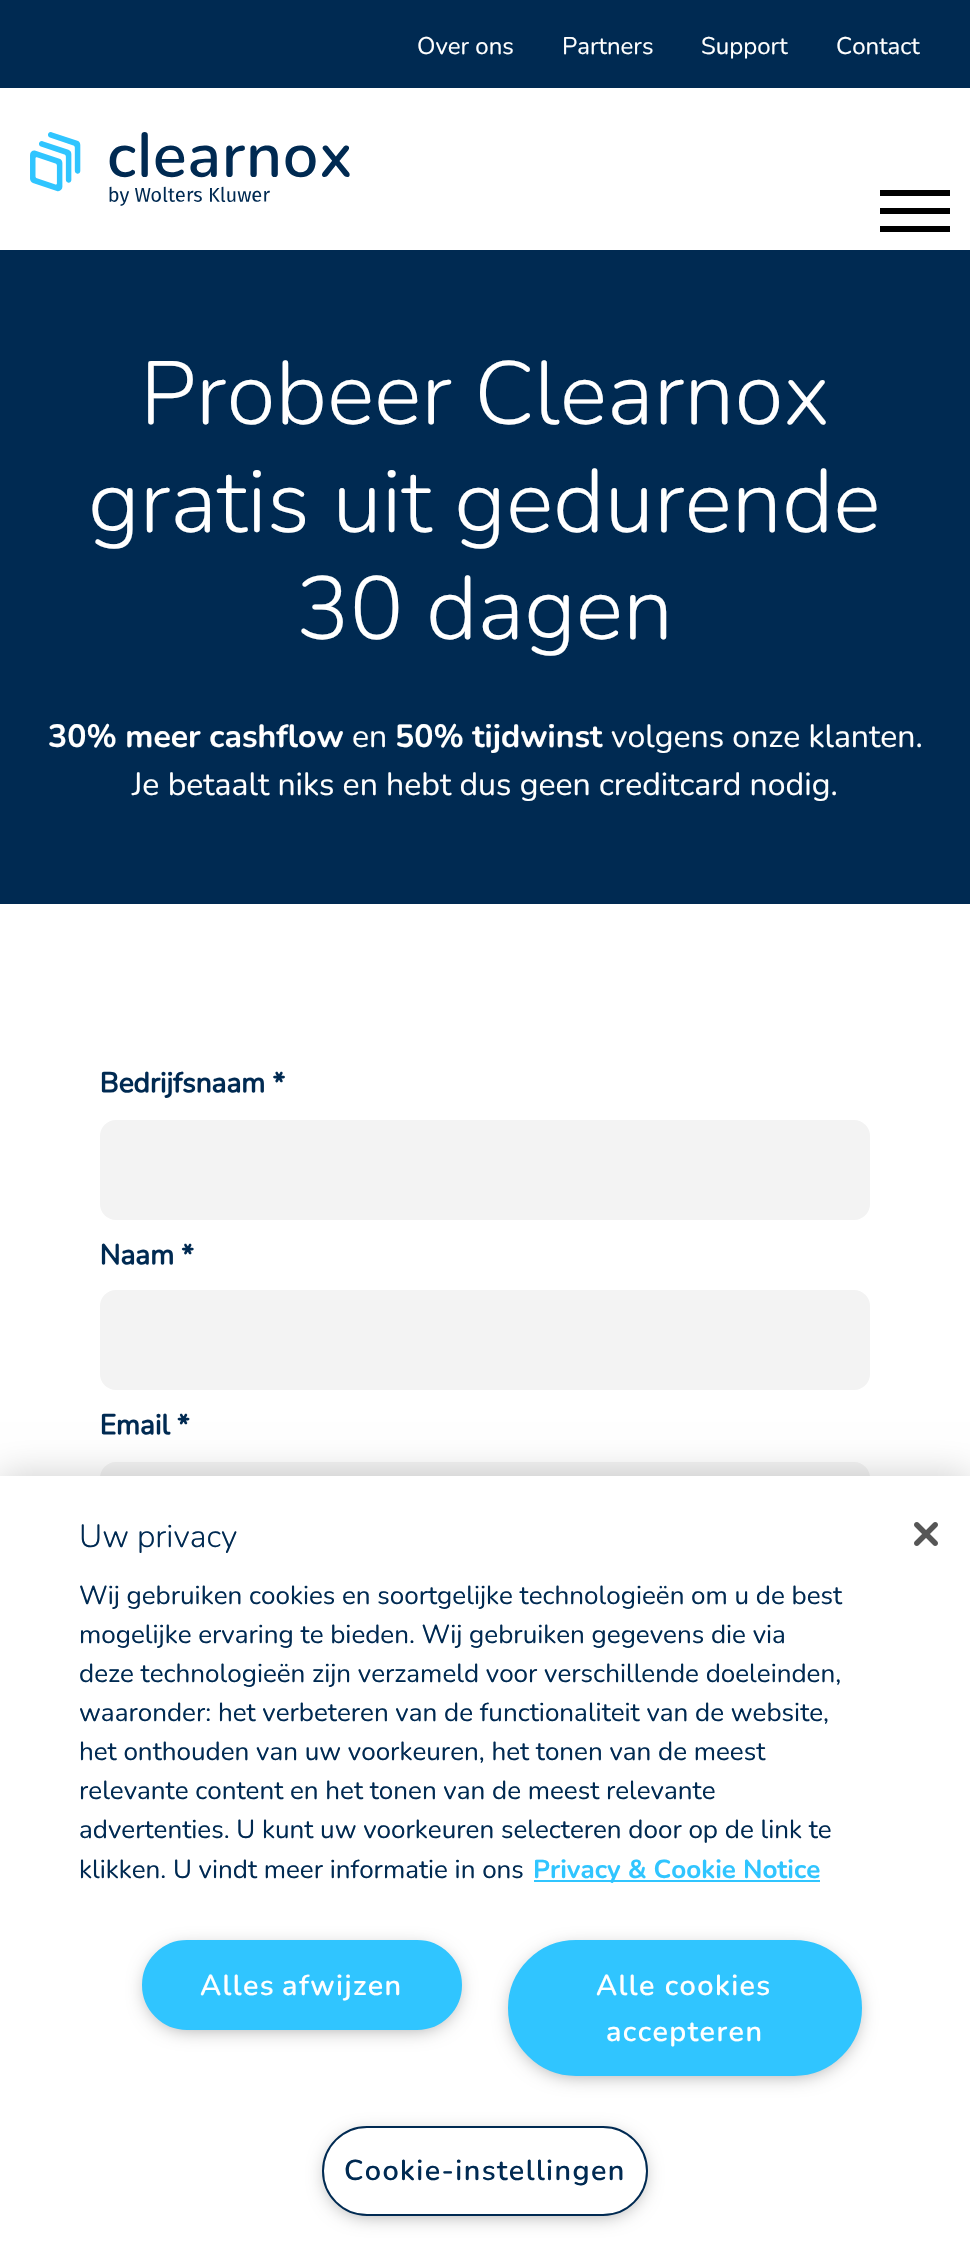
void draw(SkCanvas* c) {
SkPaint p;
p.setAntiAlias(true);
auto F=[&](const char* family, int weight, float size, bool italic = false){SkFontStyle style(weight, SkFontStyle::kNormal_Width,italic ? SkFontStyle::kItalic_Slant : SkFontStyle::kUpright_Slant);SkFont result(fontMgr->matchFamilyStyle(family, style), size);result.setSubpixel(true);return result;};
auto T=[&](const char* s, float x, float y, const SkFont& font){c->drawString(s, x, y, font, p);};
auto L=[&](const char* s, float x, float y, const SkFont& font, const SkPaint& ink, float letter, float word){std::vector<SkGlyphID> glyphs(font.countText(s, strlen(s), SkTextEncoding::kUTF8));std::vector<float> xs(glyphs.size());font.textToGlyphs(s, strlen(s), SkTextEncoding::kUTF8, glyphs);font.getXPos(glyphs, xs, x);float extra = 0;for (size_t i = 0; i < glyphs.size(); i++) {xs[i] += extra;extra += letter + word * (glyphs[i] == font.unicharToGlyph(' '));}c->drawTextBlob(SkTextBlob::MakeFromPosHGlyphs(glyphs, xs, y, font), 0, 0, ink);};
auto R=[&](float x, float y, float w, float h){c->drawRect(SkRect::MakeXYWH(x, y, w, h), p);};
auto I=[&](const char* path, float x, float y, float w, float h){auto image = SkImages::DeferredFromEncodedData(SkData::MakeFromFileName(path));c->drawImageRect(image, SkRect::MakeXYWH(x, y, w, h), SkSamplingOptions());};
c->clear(0xffffffff);
p.setColor(0xff002a52);
R(0,0,970,88);
auto f1 = F("Nunito",400,24);
p.setColor(0xffffffff);
T("Over ons",417,54,f1);
T("Partners",562,54,f1);
T("Support",701,54,f1);
T("Contact",836,54,f1);
I("1.png",30,132,320,74);
p.setColor(0xff000000);
R(880,190,70,6);
R(880,208,70,6);
R(880,226,70,6);
p.setColor(0xff002a52);
R(0,250,970,654);
auto f2 = F("Nunito",300,89.5);
p.setColor(0xffffffff);
T("Probeer Clearnox",140,424,f2);
T("gratis uit gedurende",88,532,f2);
T("30 dagen",296,639,f2);
auto f3 = F("Nunito",700,32);
T("30% meer cashflow",48,747,f3);
auto f4 = F("Nunito",400,32);
T("en",352,747,f4);
T("50% tijdwinst",395,747,f3);
T("volgens onze klanten.",611,747,f4);
T("Je betaalt niks en hebt dus geen creditcard nodig.",132,795,f4);
I("2.png",100,1071,770,405);
p.setColor(0x33000000);
p.setMaskFilter(SkMaskFilter::MakeBlur(kNormal_SkBlurStyle, 18));
c->drawRect(SkRect::MakeXYWH(0,1476,970,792),p);
p.setMaskFilter(nullptr);
p.setColor(0xffffffff);
R(0,1476,970,791);
auto f5 = F("Nunito",300,32);
p.setColor(0xff002a52);
T("Uw privacy",79,1547,f5);
auto f6 = F("Nunito",400,26);
T("Wij gebruiken cookies en soortgelijke technologieën om u de best",79,1604,f6);
T("mogelijke ervaring te bieden. Wij gebruiken gegevens die via",79,1643,f6);
T("deze technologieën zijn verzameld voor verschillende doeleinden,",79,1682,f6);
T("waaronder: het verbeteren van de functionaliteit van de website,",79,1721,f6);
T("het onthouden van uw voorkeuren, het tonen van de meest",79,1760,f6);
T("relevante content en het tonen van de meest relevante",79,1799,f6);
T("advertenties. U kunt uw voorkeuren selecteren door op de link te",79,1838,f6);
T("klikken. U vindt meer informatie in ons",79,1878,f6);
p.setColor(0xff30c5ff);
R(534,1880,286,2);
auto f7 = F("Nunito",700,26);
T("Privacy & Cookie Notice",533,1878,f7);
p.setColor(0xff999999);
p.setMaskFilter(SkMaskFilter::MakeBlur(kNormal_SkBlurStyle, 10));
c->drawRoundRect(SkRect::MakeXYWH(148,1950,308,78),39,39,p);
p.setMaskFilter(nullptr);
p.setColor(0xff30c5ff);
c->drawRoundRect(SkRect::MakeXYWH(143,1941,318,88),44,44,p);
p.setStroke(true);
p.setStrokeWidth(2);
c->drawRoundRect(SkRect::MakeXYWH(143,1941,318,88),44,44,p);
auto f8 = F("Nunito",600,28.75);
p.setStroke(false);
p.setColor(0xffffffff);
L("Alles afwijzen",200,1995,f8,p,1.4,-2);
p.setColor(0xff999999);
p.setMaskFilter(SkMaskFilter::MakeBlur(kNormal_SkBlurStyle, 10));
c->drawRoundRect(SkRect::MakeXYWH(514,1950,342,124),62,62,p);
p.setMaskFilter(nullptr);
p.setColor(0xff30c5ff);
c->drawRoundRect(SkRect::MakeXYWH(509,1941,352,134),67,67,p);
p.setStroke(true);
c->drawRoundRect(SkRect::MakeXYWH(509,1941,352,134),67,67,p);
p.setStroke(false);
p.setColor(0xffffffff);
L("Alle cookies",596,1995,f8,p,1.4,0);
L("accepteren",606,2041,f8,p,1.4,0);
p.setColor(0xff999999);
p.setMaskFilter(SkMaskFilter::MakeBlur(kNormal_SkBlurStyle, 10));
c->drawRoundRect(SkRect::MakeXYWH(328,2136,314,78),39,39,p);
p.setMaskFilter(nullptr);
p.setColor(0xffffffff);
c->drawRoundRect(SkRect::MakeXYWH(323,2127,324,88),44,44,p);
p.setStroke(true);
p.setColor(0xff002a52);
c->drawRoundRect(SkRect::MakeXYWH(323,2127,324,88),44,44,p);
p.setStroke(false);
L("Cookie-instellingen",344,2180,f8,p,1.4,0);
I("3.png",914,1522,24,24);
}
